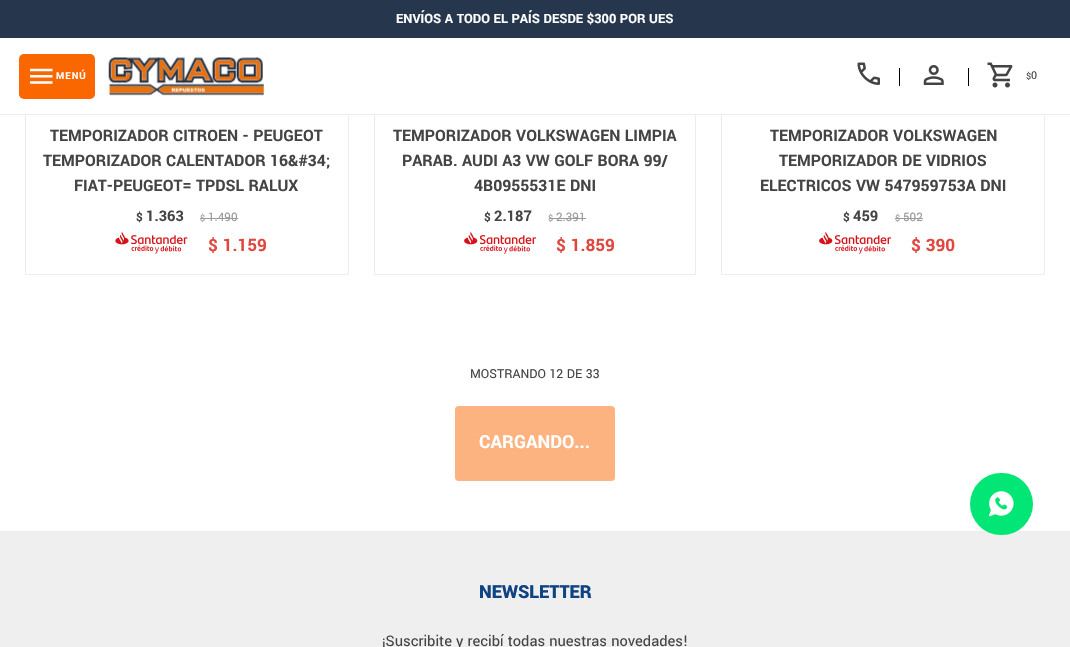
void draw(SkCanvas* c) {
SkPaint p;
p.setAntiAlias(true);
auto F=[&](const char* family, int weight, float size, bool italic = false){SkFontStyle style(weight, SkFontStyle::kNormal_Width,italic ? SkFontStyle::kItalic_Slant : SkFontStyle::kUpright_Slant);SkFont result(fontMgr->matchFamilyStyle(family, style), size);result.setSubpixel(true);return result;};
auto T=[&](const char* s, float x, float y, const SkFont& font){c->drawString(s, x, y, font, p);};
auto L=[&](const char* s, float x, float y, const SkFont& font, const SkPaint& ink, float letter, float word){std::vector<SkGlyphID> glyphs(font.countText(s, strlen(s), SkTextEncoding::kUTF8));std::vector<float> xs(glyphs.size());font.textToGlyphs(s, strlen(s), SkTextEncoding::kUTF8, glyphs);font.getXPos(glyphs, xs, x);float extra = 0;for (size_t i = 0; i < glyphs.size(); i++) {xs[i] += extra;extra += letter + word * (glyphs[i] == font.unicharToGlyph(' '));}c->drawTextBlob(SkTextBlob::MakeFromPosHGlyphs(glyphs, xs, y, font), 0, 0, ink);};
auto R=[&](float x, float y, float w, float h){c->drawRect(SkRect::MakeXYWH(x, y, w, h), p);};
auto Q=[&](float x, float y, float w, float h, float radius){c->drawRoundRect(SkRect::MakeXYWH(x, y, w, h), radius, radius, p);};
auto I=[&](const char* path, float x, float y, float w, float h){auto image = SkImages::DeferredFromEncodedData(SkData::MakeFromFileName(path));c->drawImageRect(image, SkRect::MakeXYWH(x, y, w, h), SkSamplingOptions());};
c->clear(0xffffffff);
p.setColor(0xff999999);
R(200,218,38,1);
I("6.png",115,231,73,23);
p.setStroke(true);
p.setStrokeWidth(1);
p.setColor(0xffededed);
c->drawRect(SkRect::MakeXYWH(25.5,-.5,323,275),p);
p.setStroke(false);
p.setColor(0xff999999);
R(549,218,37,1);
I("7.png",464,231,73,23);
p.setStroke(true);
p.setColor(0xffededed);
c->drawRect(SkRect::MakeXYWH(374.5,-.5,321,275),p);
p.setStroke(false);
p.setColor(0xff999999);
R(895,218,28,1);
I("7.png",819,231,73,23);
p.setStroke(true);
p.setColor(0xffededed);
c->drawRect(SkRect::MakeXYWH(721.5,-.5,323,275),p);
p.setStroke(false);
p.setColor(0xff26364d);
R(0,0,1070,38);
auto f1 = F("Yantramanav",700,14.25);
p.setColor(0xffffffff);
T("ENVÍOS A TODO EL PAÍS DESDE $300 POR UES",396,23,f1);
R(25,38,1020,76);
p.setColor(0xfffa6600);
Q(19,54,76,45,5);
I("1.png",30,68,23,16);
auto f2 = F("Yantramanav",700,10.5);
p.setColor(0xffffffff);
L("MENÚ",56,79,f2,p,1,0);
I("2.png",108,57,156,39);
I("3.png",857,62,23,23);
p.setColor(0xff000000);
R(899,68,1,18);
I("4.png",923,65,21,20);
R(968,68,1,18);
I("5.png",987,62,26,26);
auto f3 = F("Yantramanav",400,10);
p.setColor(0xff444444);
T("$",1026,79,f3);
auto f4 = F("Yantramanav",400,12);
T("0",1031,79,f4);
p.setColor(0xffededed);
R(0,114,1070,1);
auto f5 = F("Yantramanav",700,17.5);
p.setColor(0xff444444);
T("TEMPORIZADOR CITROEN - PEUGEOT",50,141,f5);
T("TEMPORIZADOR CALENTADOR 16&#34;",43,166,f5);
T("FIAT-PEUGEOT= TPDSL RALUX",74,191,f5);
auto f6 = F("Yantramanav",700,13);
T("$",136,221,f6);
auto f7 = F("Yantramanav",700,16.25);
T("1.363",146,221,f7);
p.setColor(0xff999999);
T("$",200,221,f3);
auto f8 = F("Yantramanav",400,13);
T("1.490",208,221,f8);
auto f9 = F("Yantramanav",700,19);
p.setColor(0xffe0473e);
T("$ 1.159",208,251,f9);
p.setColor(0xff444444);
T("TEMPORIZADOR VOLKSWAGEN LIMPIA",393,141,f5);
T("PARAB. AUDI A3 VW GOLF BORA 99/",402,166,f5);
T("4B0955531E DNI",474,191,f5);
T("$",484,221,f6);
T("2.187",494,221,f7);
p.setColor(0xff999999);
T("$",548,221,f3);
T("2.391",556,221,f8);
p.setColor(0xffe0473e);
T("$ 1.859",556,251,f9);
p.setColor(0xff444444);
T("TEMPORIZADOR VOLKSWAGEN",770,141,f5);
T("TEMPORIZADOR DE VIDRIOS",779,166,f5);
T("ELECTRICOS VW 547959753A DNI",760,191,f5);
T("$",843,221,f6);
T("459",853,221,f7);
p.setColor(0xff999999);
T("$",895,221,f3);
T("502",903,221,f8);
p.setColor(0xffe0473e);
T("$ 390",911,251,f9);
auto f10 = F("Yantramanav",400,13.75);
p.setColor(0xff444444);
T("MOSTRANDO 12 DE 33",470,378,f10);
p.setColor(0xfffdb380);
Q(455,406,160,75,4);
auto f11 = F("Yantramanav",700,20);
p.setColor(0xffffffff);
T("CARGANDO...",479,448,f11);
p.setColor(0xffefefef);
R(0,532,1070,115);
p.setColor(0xffededed);
R(0,531,1070,1);
auto f12 = F("Yantramanav",900,20);
p.setColor(0xff0f4382);
T("NEWSLETTER",479,598,f12);
auto f13 = F("Yantramanav",400,16.25);
p.setColor(0xff444444);
T("¡Suscribite y recibí todas nuestras novedades!",382,646,f13);
p.setColor(0xff01e675);
Q(970,473,63,62,31);
I("8.png",989,491,25,26);
}
